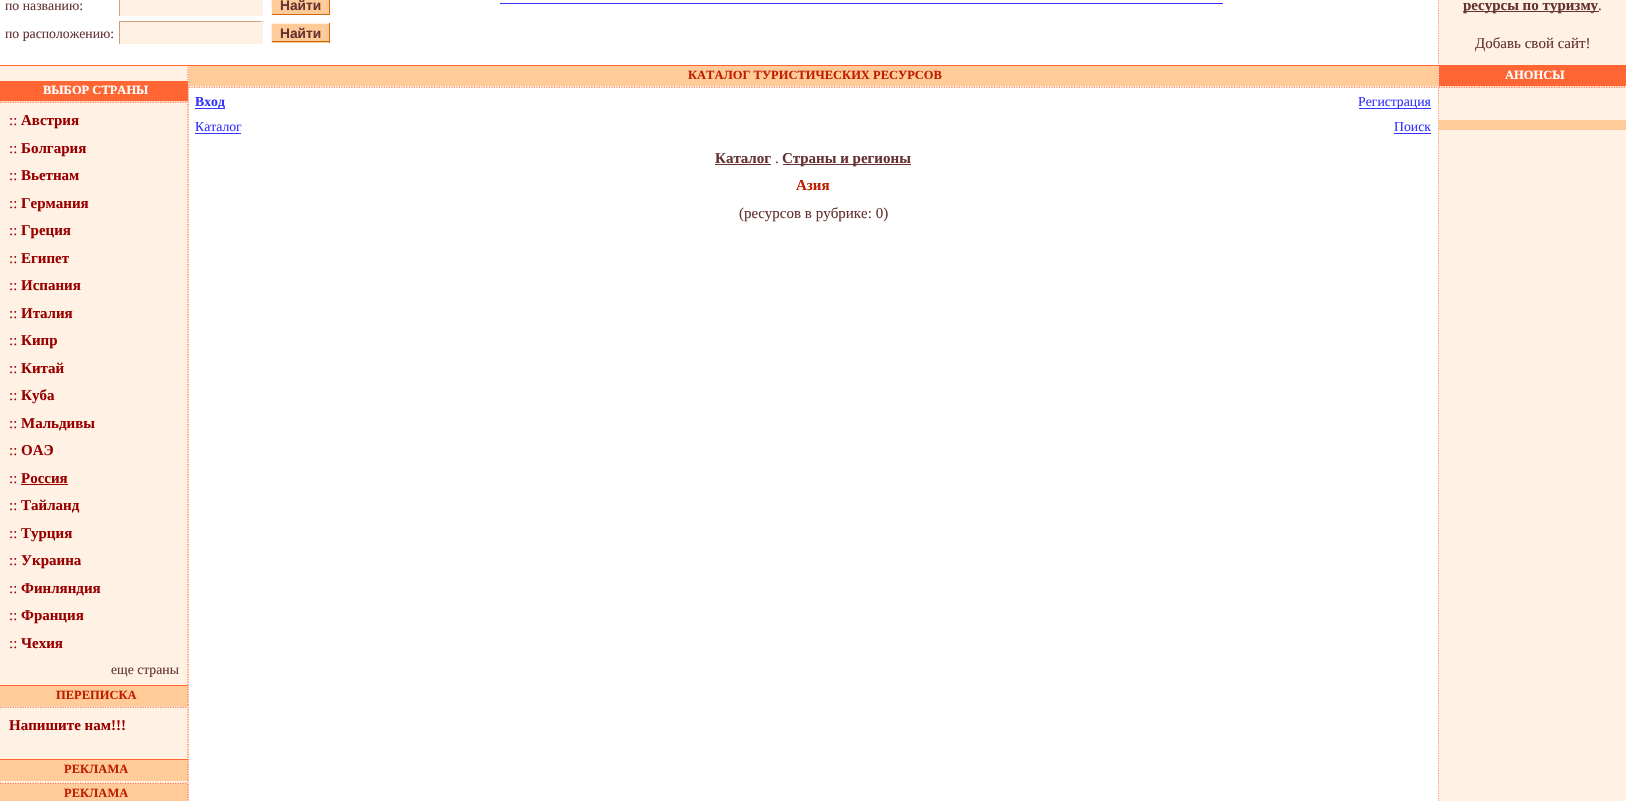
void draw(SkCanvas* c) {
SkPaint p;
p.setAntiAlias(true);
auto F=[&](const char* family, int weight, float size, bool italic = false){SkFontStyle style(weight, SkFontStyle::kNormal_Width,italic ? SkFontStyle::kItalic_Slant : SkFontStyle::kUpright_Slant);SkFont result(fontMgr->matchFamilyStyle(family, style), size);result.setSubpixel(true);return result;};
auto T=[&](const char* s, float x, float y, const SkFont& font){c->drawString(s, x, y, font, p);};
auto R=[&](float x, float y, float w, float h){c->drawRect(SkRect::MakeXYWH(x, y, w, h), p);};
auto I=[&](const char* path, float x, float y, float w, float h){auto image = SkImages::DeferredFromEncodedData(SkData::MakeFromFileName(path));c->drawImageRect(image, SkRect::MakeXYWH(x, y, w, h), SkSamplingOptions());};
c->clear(0xffffffff);
auto f1 = F("Liberation Serif",400,13.75);
p.setColor(0xff663333);
T("по названию:",5,10,f1);
p.setColor(0xfffff2e4);
R(120,0,143,15);
p.setColor(0xfffff0e0);
R(261,0,1,16);
R(119,15,144,1);
p.setColor(0xffc9a27b);
R(119,0,1,16);
p.setColor(0xffffcc99);
R(272,0,57,14);
p.setColor(0xffce6903);
R(329,0,1,15);
R(271,14,59,1);
p.setColor(0xfffff2e4);
R(271,0,1,15);
auto f2 = F("Liberation Sans",700,13.75);
p.setColor(0xff663333);
T("Найти",280,10,f2);
T("по расположению:",5,38,f1);
p.setColor(0xfffff2e4);
R(120,22,143,21);
p.setColor(0xffc9a27b);
R(119,21,144,1);
p.setColor(0xfffff0e0);
R(261,21,1,23);
R(119,43,144,1);
p.setColor(0xffc9a27b);
R(119,21,1,23);
p.setColor(0xffffcc99);
R(272,24,57,19);
p.setColor(0xfffff2e4);
R(271,23,59,1);
p.setColor(0xffce6903);
R(329,23,1,20);
R(271,41,59,1);
p.setColor(0xfffff2e4);
R(271,23,1,20);
p.setColor(0xff663333);
T("Найти",280,38,f2);
p.setColor(0xff3333ff);
R(500,3,723,1);
p.setColor(0xfffff2e4);
R(1439,0,187,65);
p.setColor(0xff663333);
R(1463,11,136,1);
auto f3 = F("Liberation Serif",700,15);
T("ресурсы по туризму",1463,10,f3);
auto f4 = F("Liberation Serif",400,15);
T(".",1598,10,f4);
T("Добавь свой сайт!",1475,48,f4);
I("1.png",1438,0,1,801);
p.setColor(0xffff6633);
R(0,65,1626,1);
p.setColor(0xfffff2e4);
R(0,66,188,718);
p.setColor(0xffff6633);
R(0,81,188,20);
I("5.png",0,101,188,2);
R(0,685,188,1);
p.setColor(0xffffcc99);
R(0,686,188,20);
I("5.png",0,706,188,2);
p.setColor(0xffff6633);
R(0,759,188,1);
p.setColor(0xffffcc99);
R(0,760,188,21);
I("6.png",0,782,188,2);
R(0,784,188,17);
I("2.png",187,66,2,735);
R(189,66,1249,20);
auto f5 = F("Liberation Serif",700,12.5);
p.setColor(0xffbf1e00);
T("КАТАЛОГ ТУРИСТИЧЕСКИХ РЕСУРСОВ",688,79,f5);
I("3.png",188,86,1250,2);
p.setColor(0xff3333ff);
R(195,108,30,1);
auto f6 = F("Liberation Serif",700,13.75);
T("Вход",195,106,f6);
R(1359,108,72,1);
T("Регистрация",1358,106,f1);
T("Каталог",195,131,f1);
R(195,133,46,1);
T("Поиск",1394,131,f1);
R(1394,133,37,1);
p.setColor(0xff663333);
T("Каталог",715,163,f3);
R(715,164,56,1);
T(".",775,163,f4);
R(783,164,128,1);
T("Страны и регионы",782,163,f3);
p.setColor(0xffbf1e00);
T("Азия",796,190,f3);
p.setColor(0xff663333);
T("(ресурсов в рубрике: 0)",739,218,f4);
p.setColor(0xfffff2e4);
R(1439,86,187,715);
p.setColor(0xffff6633);
R(1439,66,187,20);
p.setColor(0xffffffff);
T("АНОНСЫ",1505,79,f5);
I("4.png",1438,86,188,2);
p.setColor(0xffffcc99);
R(1439,120,187,10);
p.setColor(0xffffffff);
T("ВЫБОР СТРАНЫ",43,94,f5);
p.setColor(0xff990000);
T("::",9,125,f4);
T("Австрия",21,125,f3);
T("::",9,153,f4);
T("Болгария",21,153,f3);
T("::",9,180,f4);
T("Вьетнам",21,180,f3);
T("::",9,208,f4);
T("Германия",21,208,f3);
T("::",9,235,f4);
T("Греция",21,235,f3);
T("::",9,263,f4);
T("Египет",21,263,f3);
T("::",9,290,f4);
T("Испания",21,290,f3);
T("::",9,318,f4);
T("Италия",21,318,f3);
T("::",9,345,f4);
T("Кипр",21,345,f3);
T("::",9,373,f4);
T("Китай",21,373,f3);
T("::",9,400,f4);
T("Куба",21,400,f3);
T("::",9,428,f4);
T("Мальдивы",21,428,f3);
T("::",9,455,f4);
T("ОАЭ",21,455,f3);
T("::",9,483,f4);
T("Россия",21,483,f3);
R(21,484,47,1);
T("::",9,510,f4);
T("Тайланд",21,510,f3);
T("::",9,538,f4);
T("Турция",21,538,f3);
T("::",9,565,f4);
T("Украина",21,565,f3);
T("::",9,593,f4);
T("Финляндия",21,593,f3);
T("::",9,620,f4);
T("Франция",21,620,f3);
T("::",9,648,f4);
T("Чехия",21,648,f3);
p.setColor(0xff663333);
T("еще страны",111,674,f1);
p.setColor(0xffbf1e00);
T("ПЕРЕПИСКА",56,699,f5);
p.setColor(0xff990000);
T("Напишите нам!!!",9,730,f3);
p.setColor(0xffbf1e00);
T("РЕКЛАМА",64,773,f5);
T("РЕКЛАМА",64,797,f5);
}
